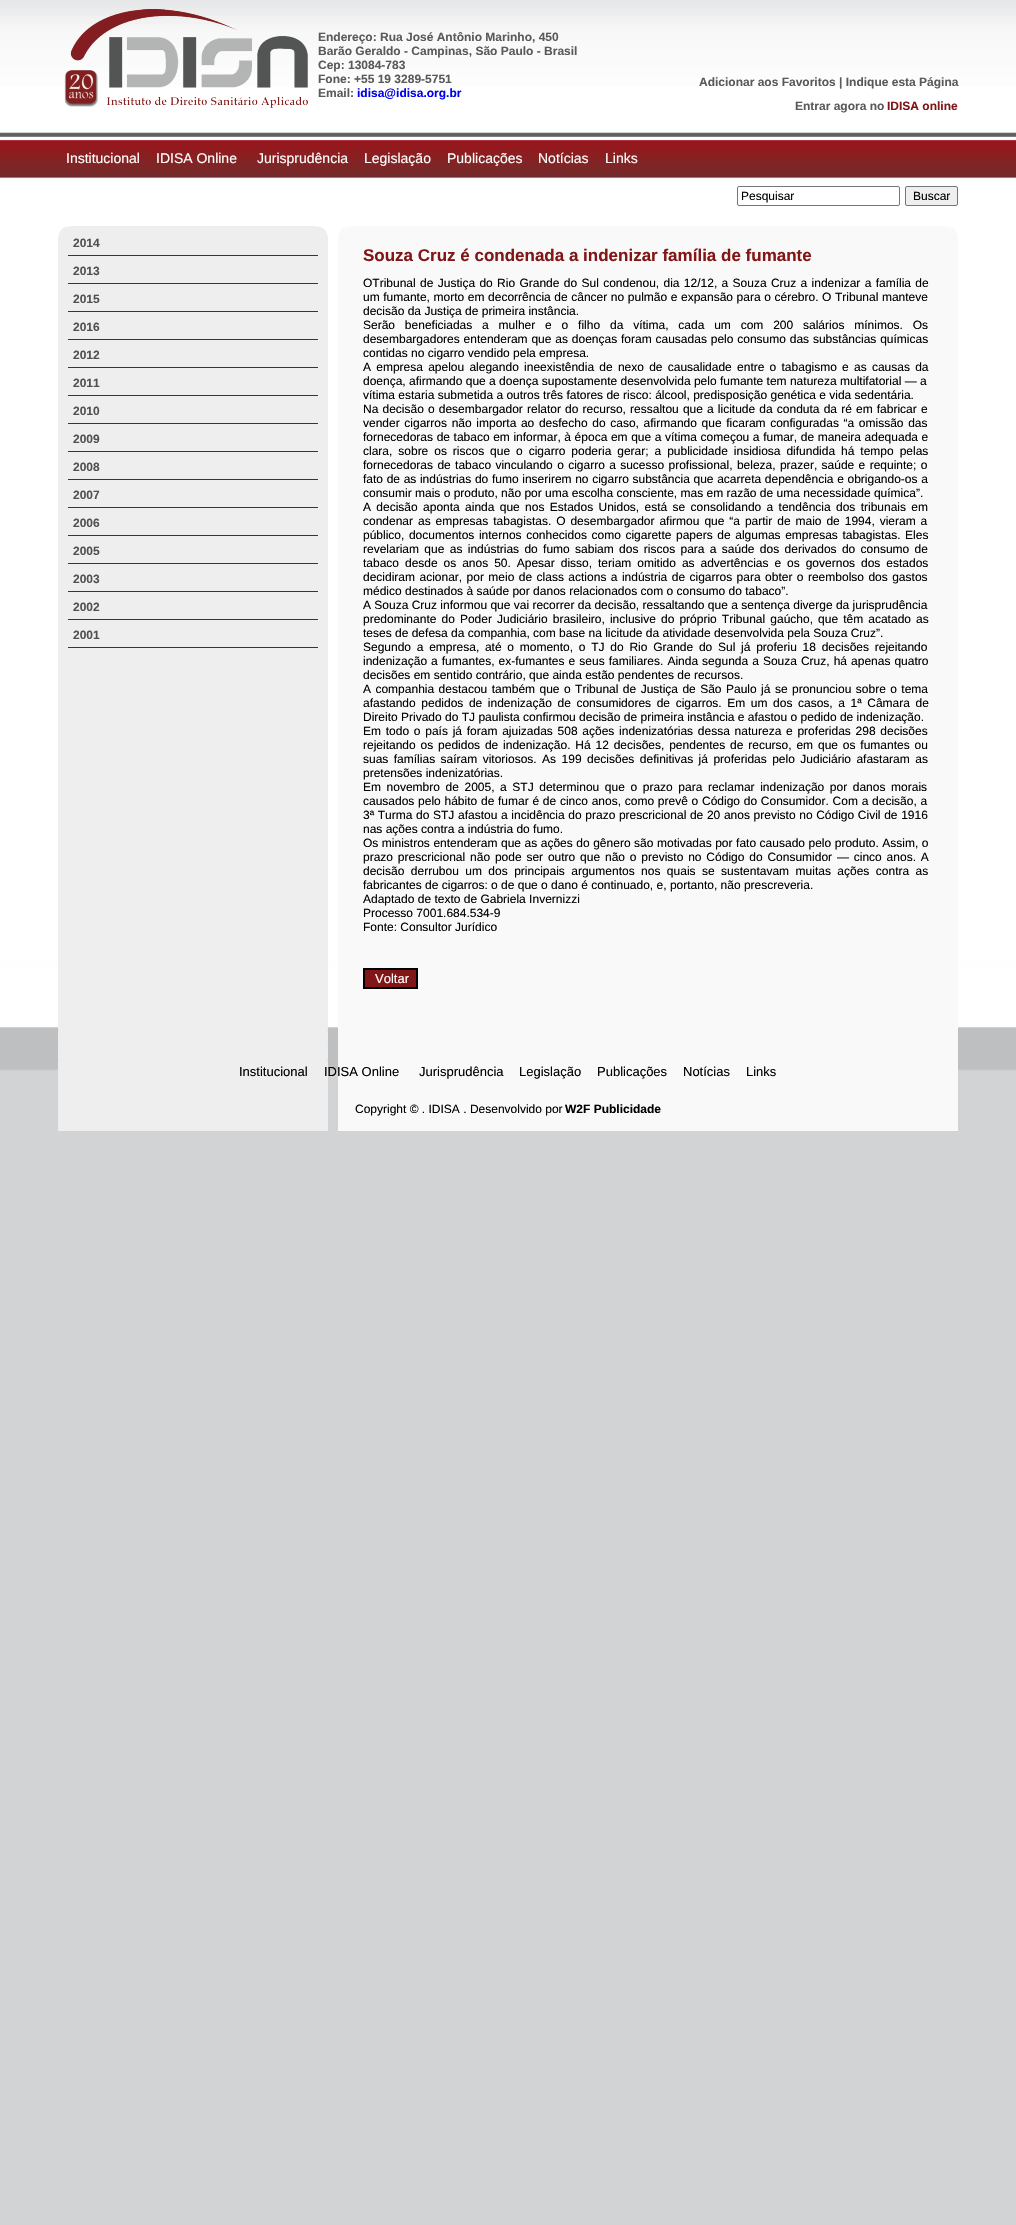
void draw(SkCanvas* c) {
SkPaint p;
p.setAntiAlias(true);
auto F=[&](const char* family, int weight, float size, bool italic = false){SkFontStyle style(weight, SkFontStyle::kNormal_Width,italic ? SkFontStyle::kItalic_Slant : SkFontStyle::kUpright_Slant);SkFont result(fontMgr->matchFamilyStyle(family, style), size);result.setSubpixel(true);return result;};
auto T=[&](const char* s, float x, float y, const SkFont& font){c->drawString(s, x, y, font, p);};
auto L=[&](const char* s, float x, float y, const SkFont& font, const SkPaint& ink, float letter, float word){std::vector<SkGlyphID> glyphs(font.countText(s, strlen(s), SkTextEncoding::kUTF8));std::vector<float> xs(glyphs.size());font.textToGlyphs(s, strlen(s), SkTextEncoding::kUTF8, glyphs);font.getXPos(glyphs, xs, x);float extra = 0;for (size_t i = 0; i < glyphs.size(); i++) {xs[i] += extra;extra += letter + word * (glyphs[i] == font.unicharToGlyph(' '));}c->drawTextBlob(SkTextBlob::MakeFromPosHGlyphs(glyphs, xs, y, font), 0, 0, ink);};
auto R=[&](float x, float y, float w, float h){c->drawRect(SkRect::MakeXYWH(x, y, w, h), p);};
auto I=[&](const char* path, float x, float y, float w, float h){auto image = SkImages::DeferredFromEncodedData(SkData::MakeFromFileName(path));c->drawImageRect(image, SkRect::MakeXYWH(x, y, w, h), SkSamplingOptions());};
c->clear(0xffd2d3d5);
I("1.png",0,0,1016,1071);
I("2.png",64,9,244,99);
auto f1 = F("Liberation Sans",700,12);
p.setColor(0xff595a5b);
T("Endereço: Rua José Antônio Marinho, 450",318,41,f1);
T("Barão Geraldo - Campinas, São Paulo - Brasil",318,55,f1);
T("Cep: 13084-783",318,69,f1);
T("Fone: +55 19 3289-5751",318,83,f1);
T("Email:",318,97,f1);
p.setColor(0xff0000ee);
T("idisa@idisa.org.br",357,97,f1);
p.setColor(0xff595a5b);
T("Adicionar aos Favoritos | Indique esta Página",699,86,f1);
T("Entrar agora no",795,110,f1);
p.setColor(0xff821616);
T("IDISA online",887,110,f1);
auto f2 = F("Liberation Sans",400,14);
p.setColor(0xffffffff);
T("Institucional",66,163,f2);
T("IDISA Online",156,163,f2);
T("Jurisprudência",257,163,f2);
T("Legislação",364,163,f2);
T("Publicações",447,163,f2);
T("Notícias",538,163,f2);
T("Links",605,163,f2);
p.setStroke(true);
p.setStrokeWidth(1);
p.setColor(0xff767676);
c->drawRoundRect(SkRect::MakeXYWH(737.5,186.5,162,19),1.5,1.5,p);
auto f3 = F("Liberation Sans",400,12);
p.setStroke(false);
p.setColor(0xff000000);
T("Pesquisar",741,200,f3);
p.setColor(0xffefefef);
c->drawRoundRect(SkRect::MakeXYWH(905.5,186.5,52,19),1.5,1.5,p);
p.setStroke(true);
p.setColor(0xff767676);
c->drawRoundRect(SkRect::MakeXYWH(905.5,186.5,52,19),1.5,1.5,p);
p.setStroke(false);
p.setColor(0xff000000);
T("Buscar",913,200,f3);
I("3.png",58,236,900,895);
I("4.png",58,226,899,490);
p.setColor(0xff821616);
R(68,255,250,1);
p.setColor(0xff515151);
T("2014",73,247,f1);
p.setColor(0xff821616);
R(68,283,250,1);
p.setColor(0xff515151);
T("2013",73,275,f1);
p.setColor(0xff821616);
R(68,311,250,1);
p.setColor(0xff515151);
T("2015",73,303,f1);
p.setColor(0xff821616);
R(68,339,250,1);
p.setColor(0xff515151);
T("2016",73,331,f1);
p.setColor(0xff821616);
R(68,367,250,1);
p.setColor(0xff515151);
T("2012",73,359,f1);
p.setColor(0xff821616);
R(68,395,250,1);
p.setColor(0xff515151);
T("2011",73,387,f1);
p.setColor(0xff821616);
R(68,423,250,1);
p.setColor(0xff515151);
T("2010",73,415,f1);
p.setColor(0xff821616);
R(68,451,250,1);
p.setColor(0xff515151);
T("2009",73,443,f1);
p.setColor(0xff821616);
R(68,479,250,1);
p.setColor(0xff515151);
T("2008",73,471,f1);
p.setColor(0xff821616);
R(68,507,250,1);
p.setColor(0xff515151);
T("2007",73,499,f1);
p.setColor(0xff821616);
R(68,535,250,1);
p.setColor(0xff515151);
T("2006",73,527,f1);
p.setColor(0xff821616);
R(68,563,250,1);
p.setColor(0xff515151);
T("2005",73,555,f1);
p.setColor(0xff821616);
R(68,591,250,1);
p.setColor(0xff515151);
T("2003",73,583,f1);
p.setColor(0xff821616);
R(68,619,250,1);
p.setColor(0xff515151);
T("2002",73,611,f1);
p.setColor(0xff821616);
R(68,647,250,1);
p.setColor(0xff515151);
T("2001",73,639,f1);
auto f4 = F("Liberation Sans",700,17);
p.setColor(0xff821616);
T("Souza Cruz é condenada a indenizar família de fumante",363,261,f4);
p.setColor(0xff000000);
L("OTribunal de Justiça do Rio Grande do Sul condenou, dia 12/12, a Souza Cruz a indenizar a família de",363,287,f3,p,0,1);
L("um fumante, morto em decorrência de câncer no pulmão e expansão para o cérebro. O Tribunal manteve",363,301,f3,p,0,.25);
T("decisão da Justiça de primeira instância.",363,315,f3);
L("Serão beneficiadas a mulher e o filho da vítima, cada um com 200 salários mínimos. Os",363,329,f3,p,0,6.5);
L("desembargadores entenderam que as doenças foram causadas pelo consumo das substâncias químicas",363,343,f3,p,0,.5);
T("contidas no cigarro vendido pela empresa.",363,357,f3);
L("A empresa apelou alegando ineexistêndia de nexo de causalidade entre o tabagismo e as causas da",363,371,f3,p,0,1.9);
T("doença, afirmando que a doença supostamente desenvolvida pelo fumante tem natureza multifatorial — a",363,385,f3);
T("vítima estaria submetida a outros três fatores de risco: álcool, predisposição genética e vida sedentária.",363,399,f3);
L("Na decisão o desembargador relator do recurso, ressaltou que a licitude da conduta da ré em fabricar e",363,413,f3,p,0,.8);
L("vender cigarros não importa ao desfecho do caso, afirmando que ficaram configuradas “a omissão das",363,427,f3,p,0,1.3);
L("fornecedoras de tabaco em informar, à época em que a vítima começou a fumar, de maneira adequada e",363,441,f3,p,0,.25);
L("clara, sobre os riscos que o cigarro poderia gerar; a publicidade insidiosa difundida há tempo pelas",363,455,f3,p,0,2.6);
L("fornecedoras de tabaco vinculando o cigarro a sucesso profissional, beleza, prazer, saúde e requinte; o",363,469,f3,p,0,1);
L("fato de as indústrias do fumo inserirem no cigarro substância que acarreta dependência e obrigando-os a",363,483,f3,p,0,.3);
T("consumir mais o produto, não por uma escolha consciente, mas em razão de uma necessidade química”.",363,497,f3);
L("A decisão aponta ainda que nos Estados Unidos, está se consolidando a tendência dos tribunais em",363,511,f3,p,0,2);
L("condenar as empresas tabagistas. O desembargador afirmou que “a partir de maio de 1994, vieram a",363,525,f3,p,0,1.6);
L("público, documentos internos conhecidos como cigarette papers de algumas empresas tabagistas. Eles",363,539,f3,p,0,1.25);
L("revelariam que as indústrias do fumo sabiam dos riscos para a saúde dos derivados do consumo de",363,553,f3,p,0,2);
L("tabaco desde os anos 50. Apesar disso, teriam omitido as advertências e os governos dos estados",363,567,f3,p,0,2.6);
L("decidiram acionar, por meio de class actions a indústria de cigarros para obter o reembolso dos gastos",363,581,f3,p,0,1.1);
T("médico destinados à saúde por danos relacionados com o consumo do tabaco”.",363,595,f3);
T("A Souza Cruz informou que vai recorrer da decisão, ressaltando que a sentença diverge da jurisprudência",363,609,f3);
L("predominante do Poder Judiciário brasileiro, inclusive do próprio Tribunal gaúcho, que têm acatado as",363,623,f3,p,0,1.75);
T("teses de defesa da companhia, com base na licitude da atividade desenvolvida pela Souza Cruz”.",363,637,f3);
L("Segundo a empresa, até o momento, o TJ do Rio Grande do Sul já proferiu 18 decisões rejeitando",363,651,f3,p,0,2.4);
L("indenização a fumantes, ex-fumantes e seus familiares. Ainda segunda a Souza Cruz, há apenas quatro",363,665,f3,p,0,.7);
T("decisões em sentido contrário, que ainda estão pendentes de recursos.",363,679,f3);
L("A companhia destacou também que o Tribunal de Justiça de São Paulo já se pronunciou sobre o tema",363,693,f3,p,0,1.1);
L("afastando pedidos de indenização de consumidores de cigarros. Em um dos casos, a 1ª Câmara de",363,707,f3,p,0,2.25);
T("Direito Privado do TJ paulista confirmou decisão de primeira instância e afastou o pedido de indenização.",363,721,f3);
L("Em todo o país já foram ajuizadas 508 ações indenizatórias dessa natureza e proferidas 298 decisões",363,735,f3,p,0,1.4);
L("rejeitando os pedidos de indenização. Há 12 decisões, pendentes de recurso, em que os fumantes ou",363,749,f3,p,0,1.5);
L("suas famílias saíram vitoriosos. As 199 decisões definitivas já proferidas pelo Judiciário afastaram as",363,763,f3,p,0,2.1);
T("pretensões indenizatórias.",363,777,f3);
L("Em novembro de 2005, a STJ determinou que o prazo para reclamar indenização por danos morais",363,791,f3,p,0,2.25);
L("causados pelo hábito de fumar é de cinco anos, como prevê o Código do Consumidor. Com a decisão, a",363,805,f3,p,0,.4);
L("3ª Turma do STJ afastou a incidência do prazo prescricional de 20 anos previsto no Código Civil de 1916",363,819,f3,p,0,.3);
T("nas ações contra a indústria do fumo.",363,833,f3);
L("Os ministros entenderam que as ações do gênero são motivadas por fato causado pelo produto. Assim, o",363,847,f3,p,0,.2);
L("prazo prescricional não pode ser outro que não o previsto no Código do Consumidor — cinco anos. A",363,861,f3,p,0,1.5);
L("decisão derrubou um dos principais argumentos nos quais se sustentavam muitas ações contra as",363,875,f3,p,0,3.1);
T("fabricantes de cigarros: o de que o dano é continuado, e, portanto, não prescreveria.",363,889,f3);
T("Adaptado de texto de Gabriela Invernizzi",363,903,f3);
T("Processo 7001.684.534-9",363,917,f3);
T("Fonte: Consultor Jurídico",363,931,f3);
p.setColor(0xff821616);
c->drawRect(SkRect::MakeXYWH(364,969,53,19),p);
p.setStroke(true);
p.setStrokeWidth(2);
p.setColor(0xff000000);
c->drawRect(SkRect::MakeXYWH(364,969,53,19),p);
auto f5 = F("Liberation Sans",400,13);
p.setStroke(false);
p.setColor(0xffffffff);
T("Voltar",375,983,f5);
p.setColor(0xff000000);
T("Institucional",239,1076,f5);
T("IDISA Online",324,1076,f5);
T("Jurisprudência",419,1076,f5);
T("Legislação",519,1076,f5);
T("Publicações",597,1076,f5);
T("Notícias",683,1076,f5);
T("Links",746,1076,f5);
T("Copyright © . IDISA . Desenvolvido por",355,1113,f3);
T("W2F Publicidade",565,1113,f1);
}
